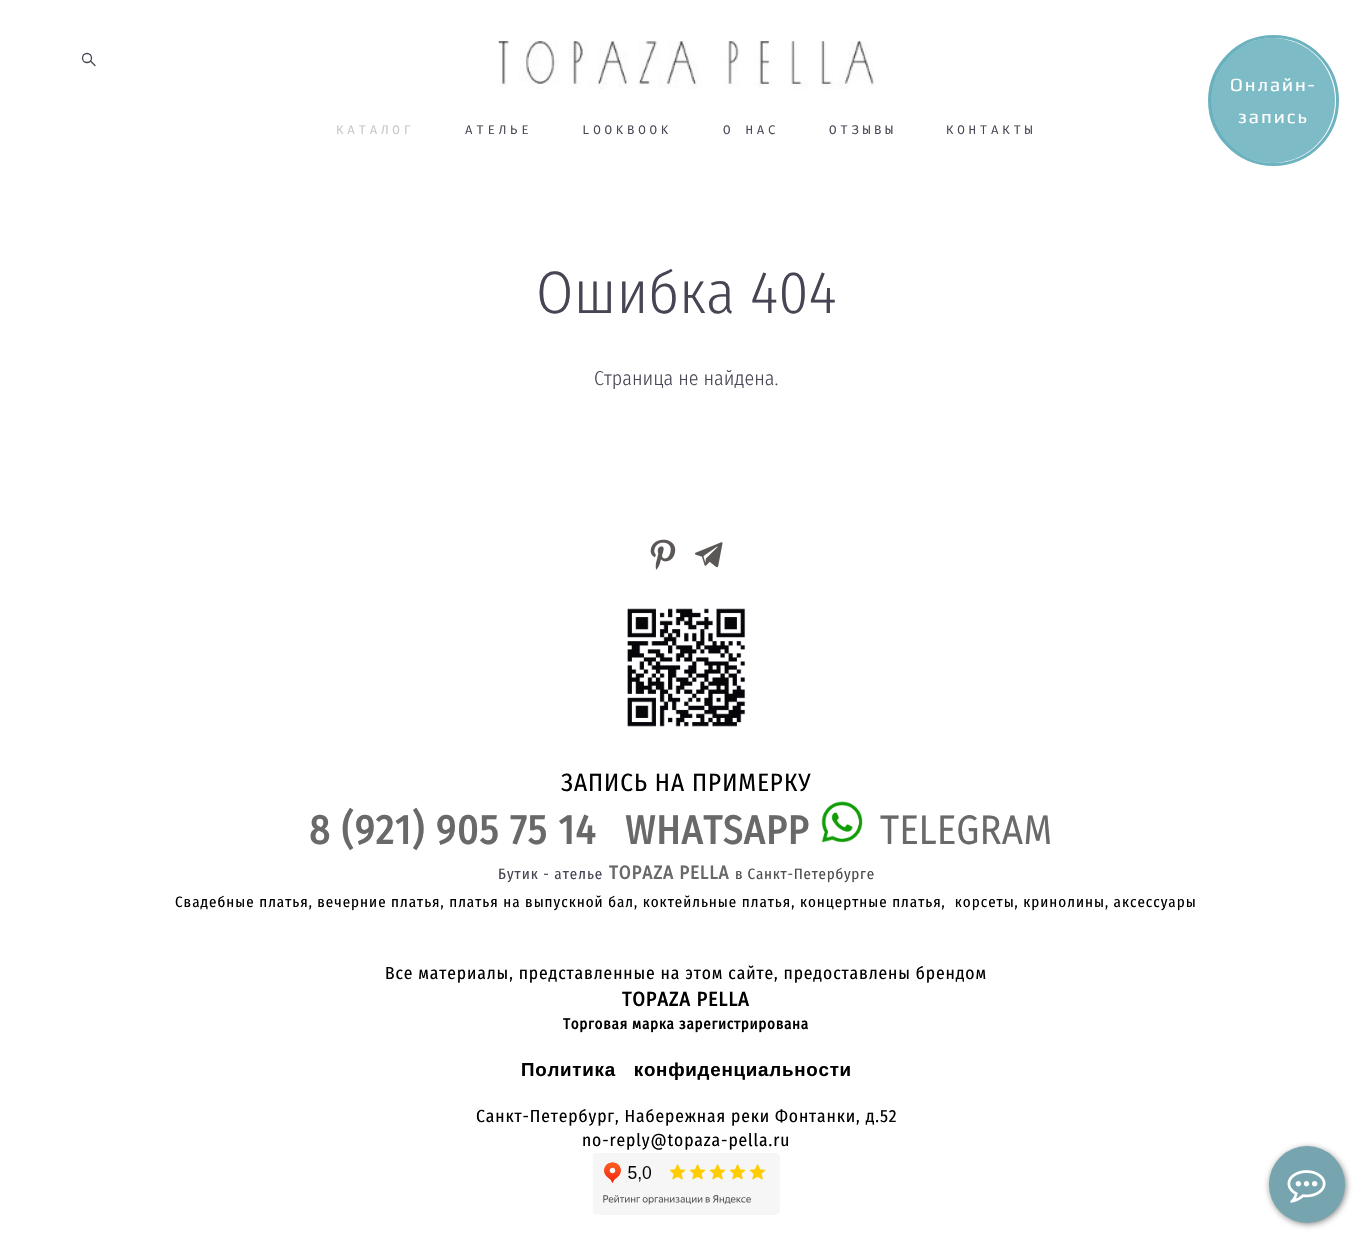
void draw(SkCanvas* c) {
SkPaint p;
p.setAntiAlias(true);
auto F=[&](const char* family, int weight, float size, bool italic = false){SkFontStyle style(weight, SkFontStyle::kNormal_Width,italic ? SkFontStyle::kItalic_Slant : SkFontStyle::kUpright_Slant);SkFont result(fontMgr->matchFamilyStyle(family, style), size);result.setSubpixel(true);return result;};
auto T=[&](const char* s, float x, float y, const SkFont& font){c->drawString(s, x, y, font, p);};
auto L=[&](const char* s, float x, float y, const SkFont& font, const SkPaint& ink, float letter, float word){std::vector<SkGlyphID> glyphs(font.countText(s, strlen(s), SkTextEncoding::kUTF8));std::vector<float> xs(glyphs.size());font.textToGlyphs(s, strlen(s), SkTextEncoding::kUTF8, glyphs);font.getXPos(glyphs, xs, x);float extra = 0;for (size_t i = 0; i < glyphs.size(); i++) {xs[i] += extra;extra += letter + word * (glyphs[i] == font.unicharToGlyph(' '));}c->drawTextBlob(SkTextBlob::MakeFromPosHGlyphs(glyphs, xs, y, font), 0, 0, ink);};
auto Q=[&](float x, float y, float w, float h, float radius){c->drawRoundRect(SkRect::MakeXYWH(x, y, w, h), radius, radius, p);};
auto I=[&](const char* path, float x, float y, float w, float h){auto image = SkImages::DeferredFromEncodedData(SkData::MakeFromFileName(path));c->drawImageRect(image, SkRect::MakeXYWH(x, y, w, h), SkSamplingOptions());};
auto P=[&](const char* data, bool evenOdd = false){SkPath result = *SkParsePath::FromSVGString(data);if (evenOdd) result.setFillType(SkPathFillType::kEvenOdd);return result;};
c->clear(0xffffffff);
p.setColor(0xff7dbbc6);
c->drawCircle(1272.5,100.5,62.5,p);
p.setStroke(true);
p.setStrokeWidth(3);
p.setColor(0xe65caab8);
c->drawCircle(1273.5,100.5,64,p);
auto f1 = F("Play",400,18.75);
p.setStroke(false);
p.setColor(0xffffffff);
L("Онлайн-",1230,91,f1,p,2,0);
L("запись",1238,123,f1,p,2,0);
p.setStroke(true);
p.setStrokeWidth(1.3);
p.setColor(0xff464553);
c->drawCircle(87,58,4.5,p);
p.setStrokeCap(SkPaint::kRound_Cap);
p.setStrokeJoin(SkPaint::kRound_Join);
c->drawPath(P("M90.5 61l4.5 4.5"),p);
I("1.png",498,41,376,48);
auto f2 = F("Fira Code",400,12.5);
p.setStroke(false);
p.setColor(0xffc7c7c7);
L("КАТАЛОГ",336,134,f2,p,3.75,0);
p.setColor(0xff464553);
L("АТЕЛЬЕ",465,134,f2,p,3.75,0);
L("LOOKBOOK",582,134,f2,p,3.75,0);
L("О НАС",723,134,f2,p,3.75,0);
L("ОТЗЫВЫ",829,134,f2,p,3.75,0);
L("КОНТАКТЫ",946,134,f2,p,3.75,0);
auto f3 = F("Fira Sans Condensed",300,60);
T("Ошибка 404",536,313,f3);
auto f4 = F("Fira Sans Condensed",300,20);
T("Страница не найдена.",594,385,f4);
I("2.png",650,539,26,31);
I("3.png",695,542,28,26);
I("4.png",627,608,119,119);
auto f5 = F("Fira Sans Condensed",400,25);
p.setColor(0xff000000);
L("ЗАПИСЬ НА ПРИМЕРКУ",561,791,f5,p,1,0);
auto f6 = F("Fira Sans Condensed",700,41.25);
p.setColor(0xff696969);
L("8 (921) 905 75 14",309,844,f6,p,1,0);
auto f7 = F("Fira Sans Condensed",700,40);
L("WHATSAPP",625,844,f7,p,1,0);
I("5.png",821,801,42,42);
auto f8 = F("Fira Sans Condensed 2",700,40);
L("TELEGRAM",880,844,f8,p,1,0);
auto f9 = F("Fira Sans Condensed",400,15);
p.setColor(0xff464553);
L("Бутик - ателье",498,879,f9,p,1,0);
auto f10 = F("Fira Sans Condensed",700,18.75);
p.setColor(0xff696969);
L("TOPAZA PELLA",609,879,f10,p,1,0);
p.setColor(0xff4f4c4c);
L("в Санкт-Петербурге",735,879,f9,p,.75,0);
p.setColor(0xff000000);
L("Свадебные платья, вечерние платья, платья на выпускной бал, коктейльные платья, концертные платья,  корсеты, кринолины, аксессуары",175,907,f9,p,1,0);
auto f11 = F("Fira Sans Condensed",400,17.5);
L("Все материалы, представленные на этом сайте, предоставлены брендом",385,979,f11,p,.88,0);
auto f12 = F("Fira Sans Condensed",700,20);
L("TOPAZA PELLA",622,1006,f12,p,1,0);
auto f13 = F("Fira Sans Condensed",700,15);
L("Торговая марка зарегистрирована",563,1029,f13,p,.75,0);
auto f14 = F("Liberation Sans",700,18.75);
L("Политика   конфиденциальности",521,1076,f14,p,.75,0);
L("Cанкт-Петербург, Набережная реки Фонтанки, д.52",476,1122,f11,p,.88,0);
L("no-reply@topaza-pella.ru",582,1146,f11,p,.88,0);
I("6.png",593,1153,187,62);
p.setColor(0x80000000);
p.setMaskFilter(SkMaskFilter::MakeBlur(kNormal_SkBlurStyle, 3));
c->drawRoundRect(SkRect::MakeXYWH(1270,1148,76,76),38,38,p);
p.setMaskFilter(nullptr);
p.setColor(0xff76a5af);
Q(1269,1146,76,77,38);
I("7.png",1287,1170,39,33);
}
